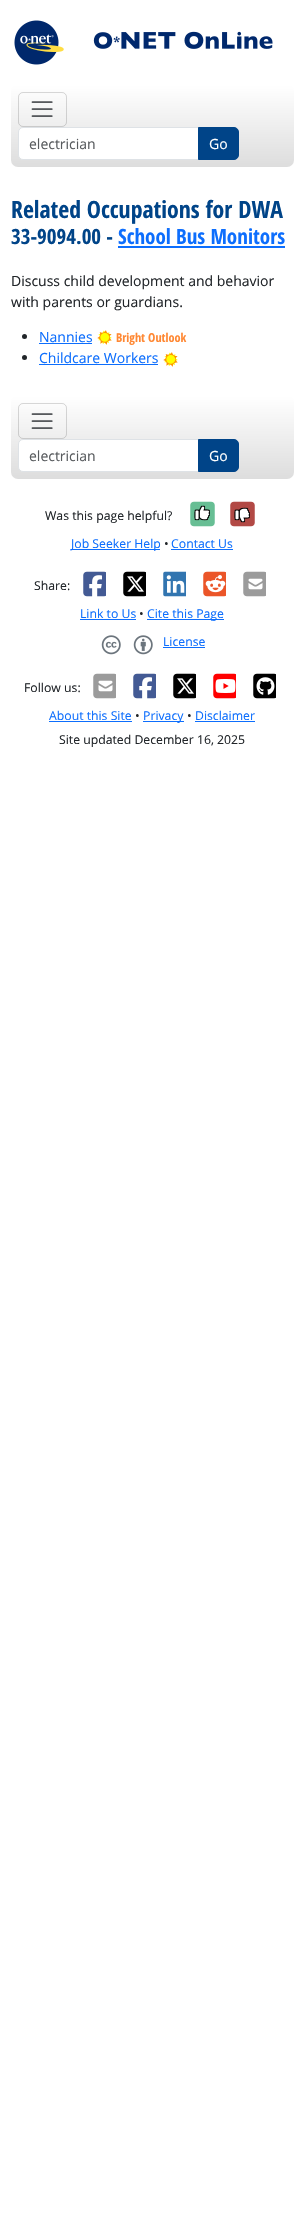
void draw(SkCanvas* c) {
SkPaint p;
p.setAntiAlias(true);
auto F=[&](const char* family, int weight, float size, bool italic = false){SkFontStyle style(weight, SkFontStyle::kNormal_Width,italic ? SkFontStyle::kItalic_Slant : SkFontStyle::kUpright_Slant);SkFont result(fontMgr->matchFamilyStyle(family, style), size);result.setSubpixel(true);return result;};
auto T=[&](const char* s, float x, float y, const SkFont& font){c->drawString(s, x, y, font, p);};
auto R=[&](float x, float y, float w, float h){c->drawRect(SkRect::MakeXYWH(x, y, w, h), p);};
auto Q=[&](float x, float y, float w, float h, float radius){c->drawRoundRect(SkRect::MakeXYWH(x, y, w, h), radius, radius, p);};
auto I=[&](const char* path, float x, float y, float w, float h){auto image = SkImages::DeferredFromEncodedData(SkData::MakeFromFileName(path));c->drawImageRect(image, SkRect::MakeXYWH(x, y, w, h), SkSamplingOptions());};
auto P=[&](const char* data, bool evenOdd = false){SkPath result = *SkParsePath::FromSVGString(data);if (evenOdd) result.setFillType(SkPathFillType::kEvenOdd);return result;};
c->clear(0xffffffff);
I("1.png",14,20,259,45);
{
const SkColor colors[] = {0xffffffff,0xffdddddd};
const float stops[] = {0,1};
const SkPoint ends[] = {{153,85}, {153,167}};
p.setShader(SkGradientShader::MakeLinear(ends, colors, stops, 2, SkTileMode::kClamp));
p.setAlpha(255);
}
Q(11,85,283,82,7);
p.setStroke(true);
p.setStrokeWidth(1);
p.setShader(nullptr);
p.setColor(0x26000000);
c->drawRoundRect(SkRect::MakeXYWH(18.5,92.5,48,34),4.5,4.5,p);
I("2.png",31,101,22,16);
p.setStroke(false);
p.setColor(0xffffffff);
c->drawPath(P("M23 127.5h175.5v32h-175.5c-2.5 0-4.5-2-4.5-4.5v-23c0-2.5 2-4.5 4.5-4.5z"),p);
p.setStroke(true);
p.setColor(0xffdee2e6);
c->drawPath(P("M23 127.5h175.5v32h-175.5c-2.5 0-4.5-2-4.5-4.5v-23c0-2.5 2-4.5 4.5-4.5z"),p);
auto f1 = F("Open Sans",400,14);
p.setStroke(false);
p.setColor(0xff595c5f);
T("electrician",29,149,f1);
p.setColor(0xff004488);
c->drawPath(P("M198.5 127.5h35.5c2.5 0 4.5 2 4.5 4.5v23c0 2.5-2 4.5-4.5 4.5h-35.5z"),p);
p.setStroke(true);
c->drawPath(P("M198.5 127.5h35.5c2.5 0 4.5 2 4.5 4.5v23c0 2.5-2 4.5-4.5 4.5h-35.5z"),p);
p.setStroke(false);
p.setColor(0xffffffff);
T("Go",209,149,f1);
auto f2 = F("Open Sans Condensed",700,23.75);
p.setColor(0xff004488);
T("Related Occupations for DWA",11,218,f2);
auto f3 = F("Open Sans Condensed",700,21);
T("33-9094.00 -",11,244,f3);
p.setColor(0xff0d6efd);
T("School Bus Monitors",118,244,f3);
R(118,246,167,2);
p.setColor(0xff212529);
T("Discuss child development and behavior",11,286,f1);
T("with parents or guardians.",11,307,f1);
c->drawCircle(24.5,336.5,2.5,p);
p.setColor(0xff0d6efd);
T("Nannies",39,342,f1);
R(39,343,53,1);
I("3.png",97,330,15,15);
auto f4 = F("Open Sans Condensed",700,12.25);
p.setColor(0xffff8833);
T("Bright Outlook",116,342,f4);
p.setColor(0xff212529);
c->drawCircle(24.5,357.5,2.5,p);
p.setColor(0xff0d6efd);
T("Childcare Workers",39,363,f1);
R(39,364,119,1);
I("3.png",163,352,15,15);
{
const SkColor colors[] = {0xffffffff,0xffdddddd};
const float stops[] = {0,1};
const SkPoint ends[] = {{153,396}, {153,479}};
p.setShader(SkGradientShader::MakeLinear(ends, colors, stops, 2, SkTileMode::kClamp));
p.setAlpha(255);
}
Q(11,396,283,83,7);
p.setStroke(true);
p.setShader(nullptr);
p.setColor(0x26000000);
c->drawRoundRect(SkRect::MakeXYWH(18.5,403.5,48,35),4.5,4.5,p);
I("4.png",31,413,22,16);
p.setStroke(false);
p.setColor(0xffffffff);
c->drawPath(P("M23 439.5h175.5v32h-175.5c-2.5 0-4.5-2-4.5-4.5v-23c0-2.5 2-4.5 4.5-4.5z"),p);
p.setStroke(true);
p.setColor(0xffdee2e6);
c->drawPath(P("M23 439.5h175.5v32h-175.5c-2.5 0-4.5-2-4.5-4.5v-23c0-2.5 2-4.5 4.5-4.5z"),p);
p.setStroke(false);
p.setColor(0xff595c5f);
T("electrician",29,461,f1);
p.setColor(0xff004488);
c->drawPath(P("M198.5 439.5h35.5c2.5 0 4.5 2 4.5 4.5v23c0 2.5-2 4.5-4.5 4.5h-35.5z"),p);
p.setStroke(true);
c->drawPath(P("M198.5 439.5h35.5c2.5 0 4.5 2 4.5 4.5v23c0 2.5-2 4.5-4.5 4.5h-35.5z"),p);
p.setStroke(false);
p.setColor(0xffffffff);
T("Go",209,461,f1);
auto f5 = F("Open Sans",400,12.25);
p.setColor(0xff212529);
T("Was this page helpful?",45,520,f5);
I("5.png",190,501,25,26);
I("6.png",194,505,14,13);
I("9.png",197,507,13,14);
I("7.png",196,505,14,13);
I("10.png",194,511,12,10);
I("8.png",195,506,14,14);
I("11.png",230,501,25,26);
I("12.png",234,507,12,11);
I("15.png",237,510,13,13);
I("13.png",236,507,14,13);
I("16.png",234,511,14,12);
I("14.png",235,508,14,14);
p.setColor(0xff0d6efd);
R(71,549,89,1);
T("Job Seeker Help",71,548,f5);
p.setColor(0xff212529);
T("•",164,548,f5);
p.setColor(0xff0d6efd);
T("Contact Us",171,548,f5);
R(171,549,62,1);
p.setColor(0xff212529);
T("Share:",34,590,f5);
I("17.png",83,571,23,26);
I("18.png",123,571,23,26);
I("19.png",163,571,23,26);
I("20.png",203,571,23,26);
I("21.png",243,571,23,26);
p.setColor(0xff0d6efd);
T("Link to Us",80,618,f5);
R(80,619,56,1);
p.setColor(0xff212529);
T("•",139,618,f5);
p.setColor(0xff0d6efd);
R(147,619,77,1);
T("Cite this Page",147,618,f5);
I("22.png",101,635,20,20);
I("23.png",133,635,20,20);
T("License",163,646,f5);
R(163,647,42,1);
p.setColor(0xff212529);
T("Follow us:",24,692,f5);
I("21.png",93,673,23,26);
I("17.png",133,673,23,26);
I("18.png",173,673,23,26);
I("24.png",213,673,23,26);
I("25.png",253,673,23,26);
p.setColor(0xff0d6efd);
T("About this Site",49,720,f5);
R(49,721,83,1);
p.setColor(0xff212529);
T("•",135,720,f5);
p.setColor(0xff0d6efd);
R(143,721,41,1);
T("Privacy",143,720,f5);
p.setColor(0xff212529);
T("•",187,720,f5);
p.setColor(0xff0d6efd);
T("Disclaimer",195,720,f5);
R(195,721,60,1);
p.setColor(0xff212529);
T("Site updated December 16, 2025",59,744,f5);
}
